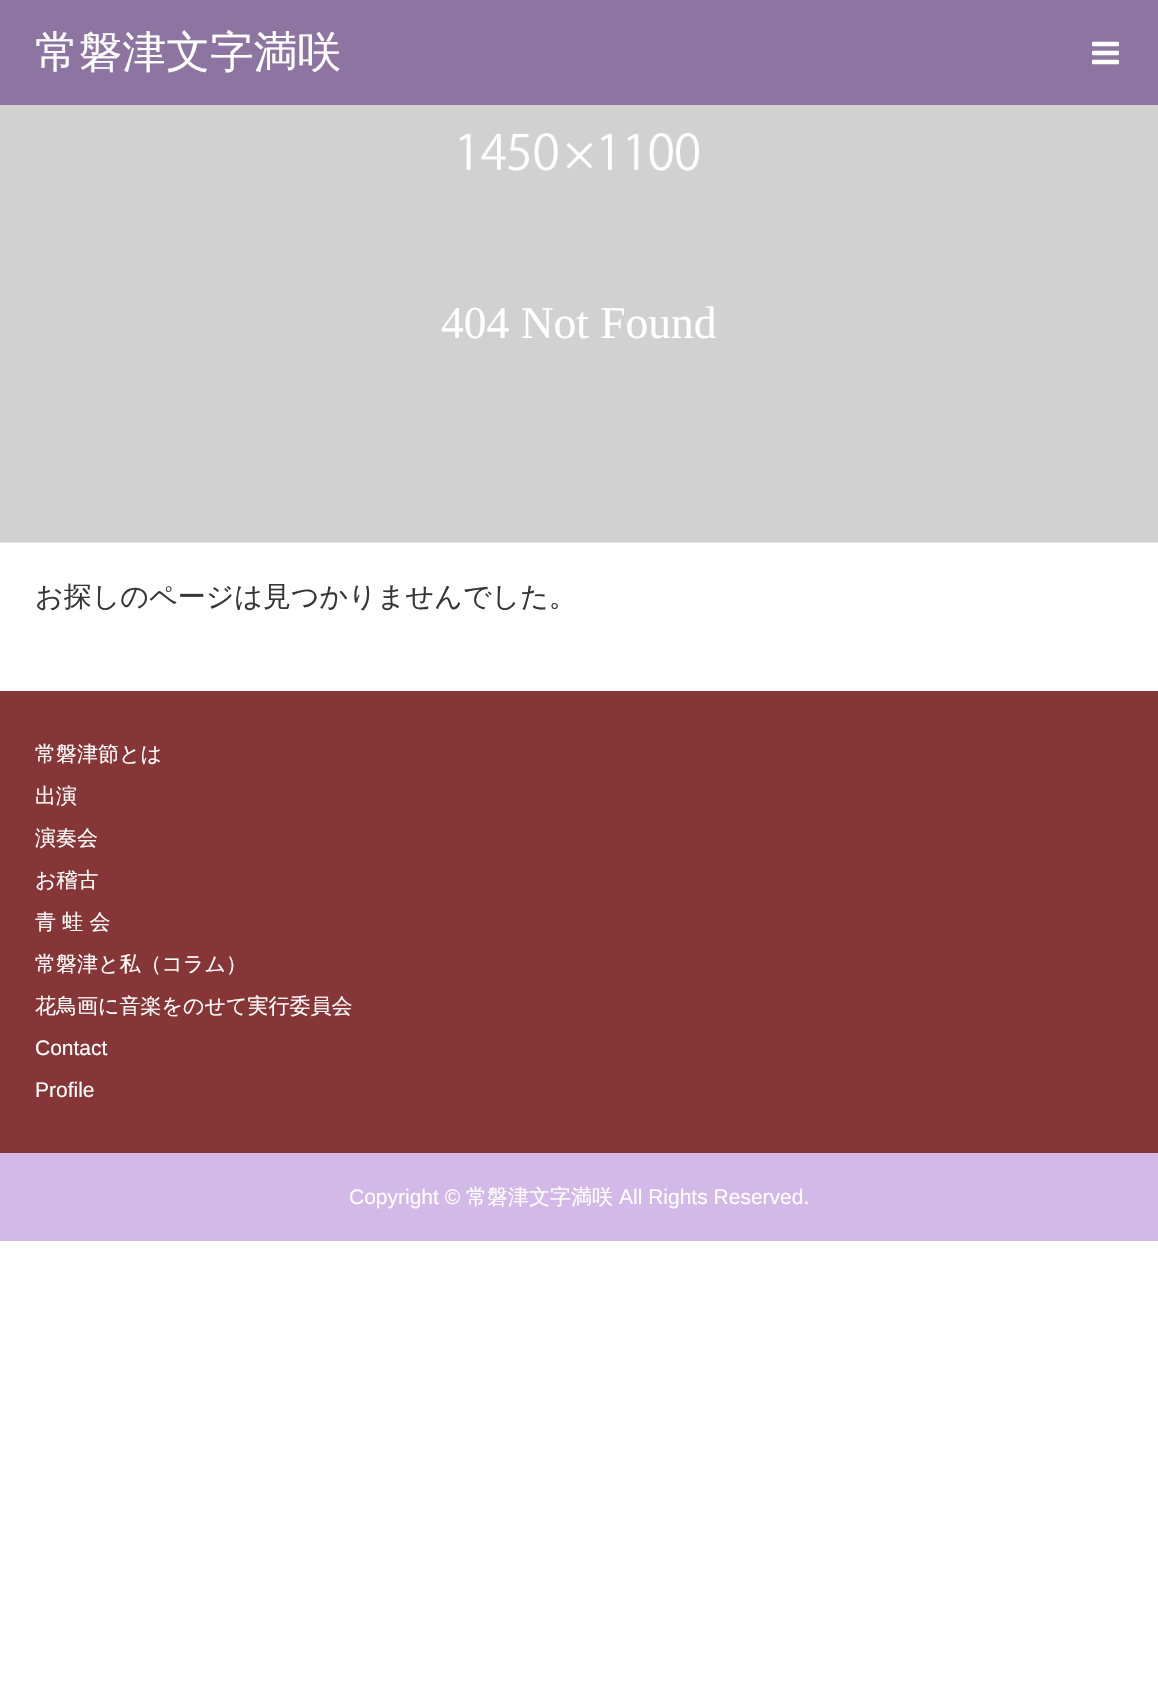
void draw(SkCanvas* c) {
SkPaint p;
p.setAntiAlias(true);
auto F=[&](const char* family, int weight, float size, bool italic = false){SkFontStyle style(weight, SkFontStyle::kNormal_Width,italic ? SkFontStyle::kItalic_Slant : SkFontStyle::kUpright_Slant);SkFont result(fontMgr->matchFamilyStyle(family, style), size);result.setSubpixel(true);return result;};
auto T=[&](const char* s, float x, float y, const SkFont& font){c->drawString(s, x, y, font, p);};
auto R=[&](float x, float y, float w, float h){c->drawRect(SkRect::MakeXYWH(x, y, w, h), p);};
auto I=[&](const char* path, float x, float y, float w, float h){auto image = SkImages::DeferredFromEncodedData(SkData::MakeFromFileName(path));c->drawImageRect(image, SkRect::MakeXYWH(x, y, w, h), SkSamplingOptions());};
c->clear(0xffffffff);
p.setColor(0xff8e74a0);
R(0,0,1158,105);
auto f1 = F("WenQuanYi Zen Hei",500,43.75);
p.setColor(0xffffffff);
T("常磐津文字満咲",35,67,f1);
I("1.png",1092,41,27,24);
p.setColor(0xfff8f8f8);
R(0,542,1158,1);
I("2.png",0,105,1158,438);
auto f2 = F("Liberation Serif",400,45.5);
p.setColor(0xffffffff);
T("404 Not Found",441,338,f2);
auto f3 = F("WenQuanYi Zen Hei",500,28);
p.setColor(0xff363636);
T("お探しのページは見つかりませんでした。",35,606,f3);
p.setColor(0xff863636);
R(0,691,1158,462);
auto f4 = F("WenQuanYi Zen Hei",500,21);
p.setColor(0xffffffff);
T("常磐津節とは",35,761,f4);
T("出演",35,803,f4);
T("演奏会",35,845,f4);
T("お稽古",35,887,f4);
T("青 蛙 会",35,929,f4);
T("常磐津と私（コラム）",35,971,f4);
T("花鳥画に音楽をのせて実行委員会",35,1013,f4);
auto f5 = F("Liberation Sans",400,21);
T("Contact",35,1055,f5);
T("Profile",35,1097,f5);
p.setColor(0xffd3b9e8);
R(0,1153,1158,88);
p.setColor(0xffffffff);
T("Copyright ©",349,1204,f5);
T("常磐津文字満咲",466,1204,f4);
T("All Rights Reserved.",619,1204,f5);
}
